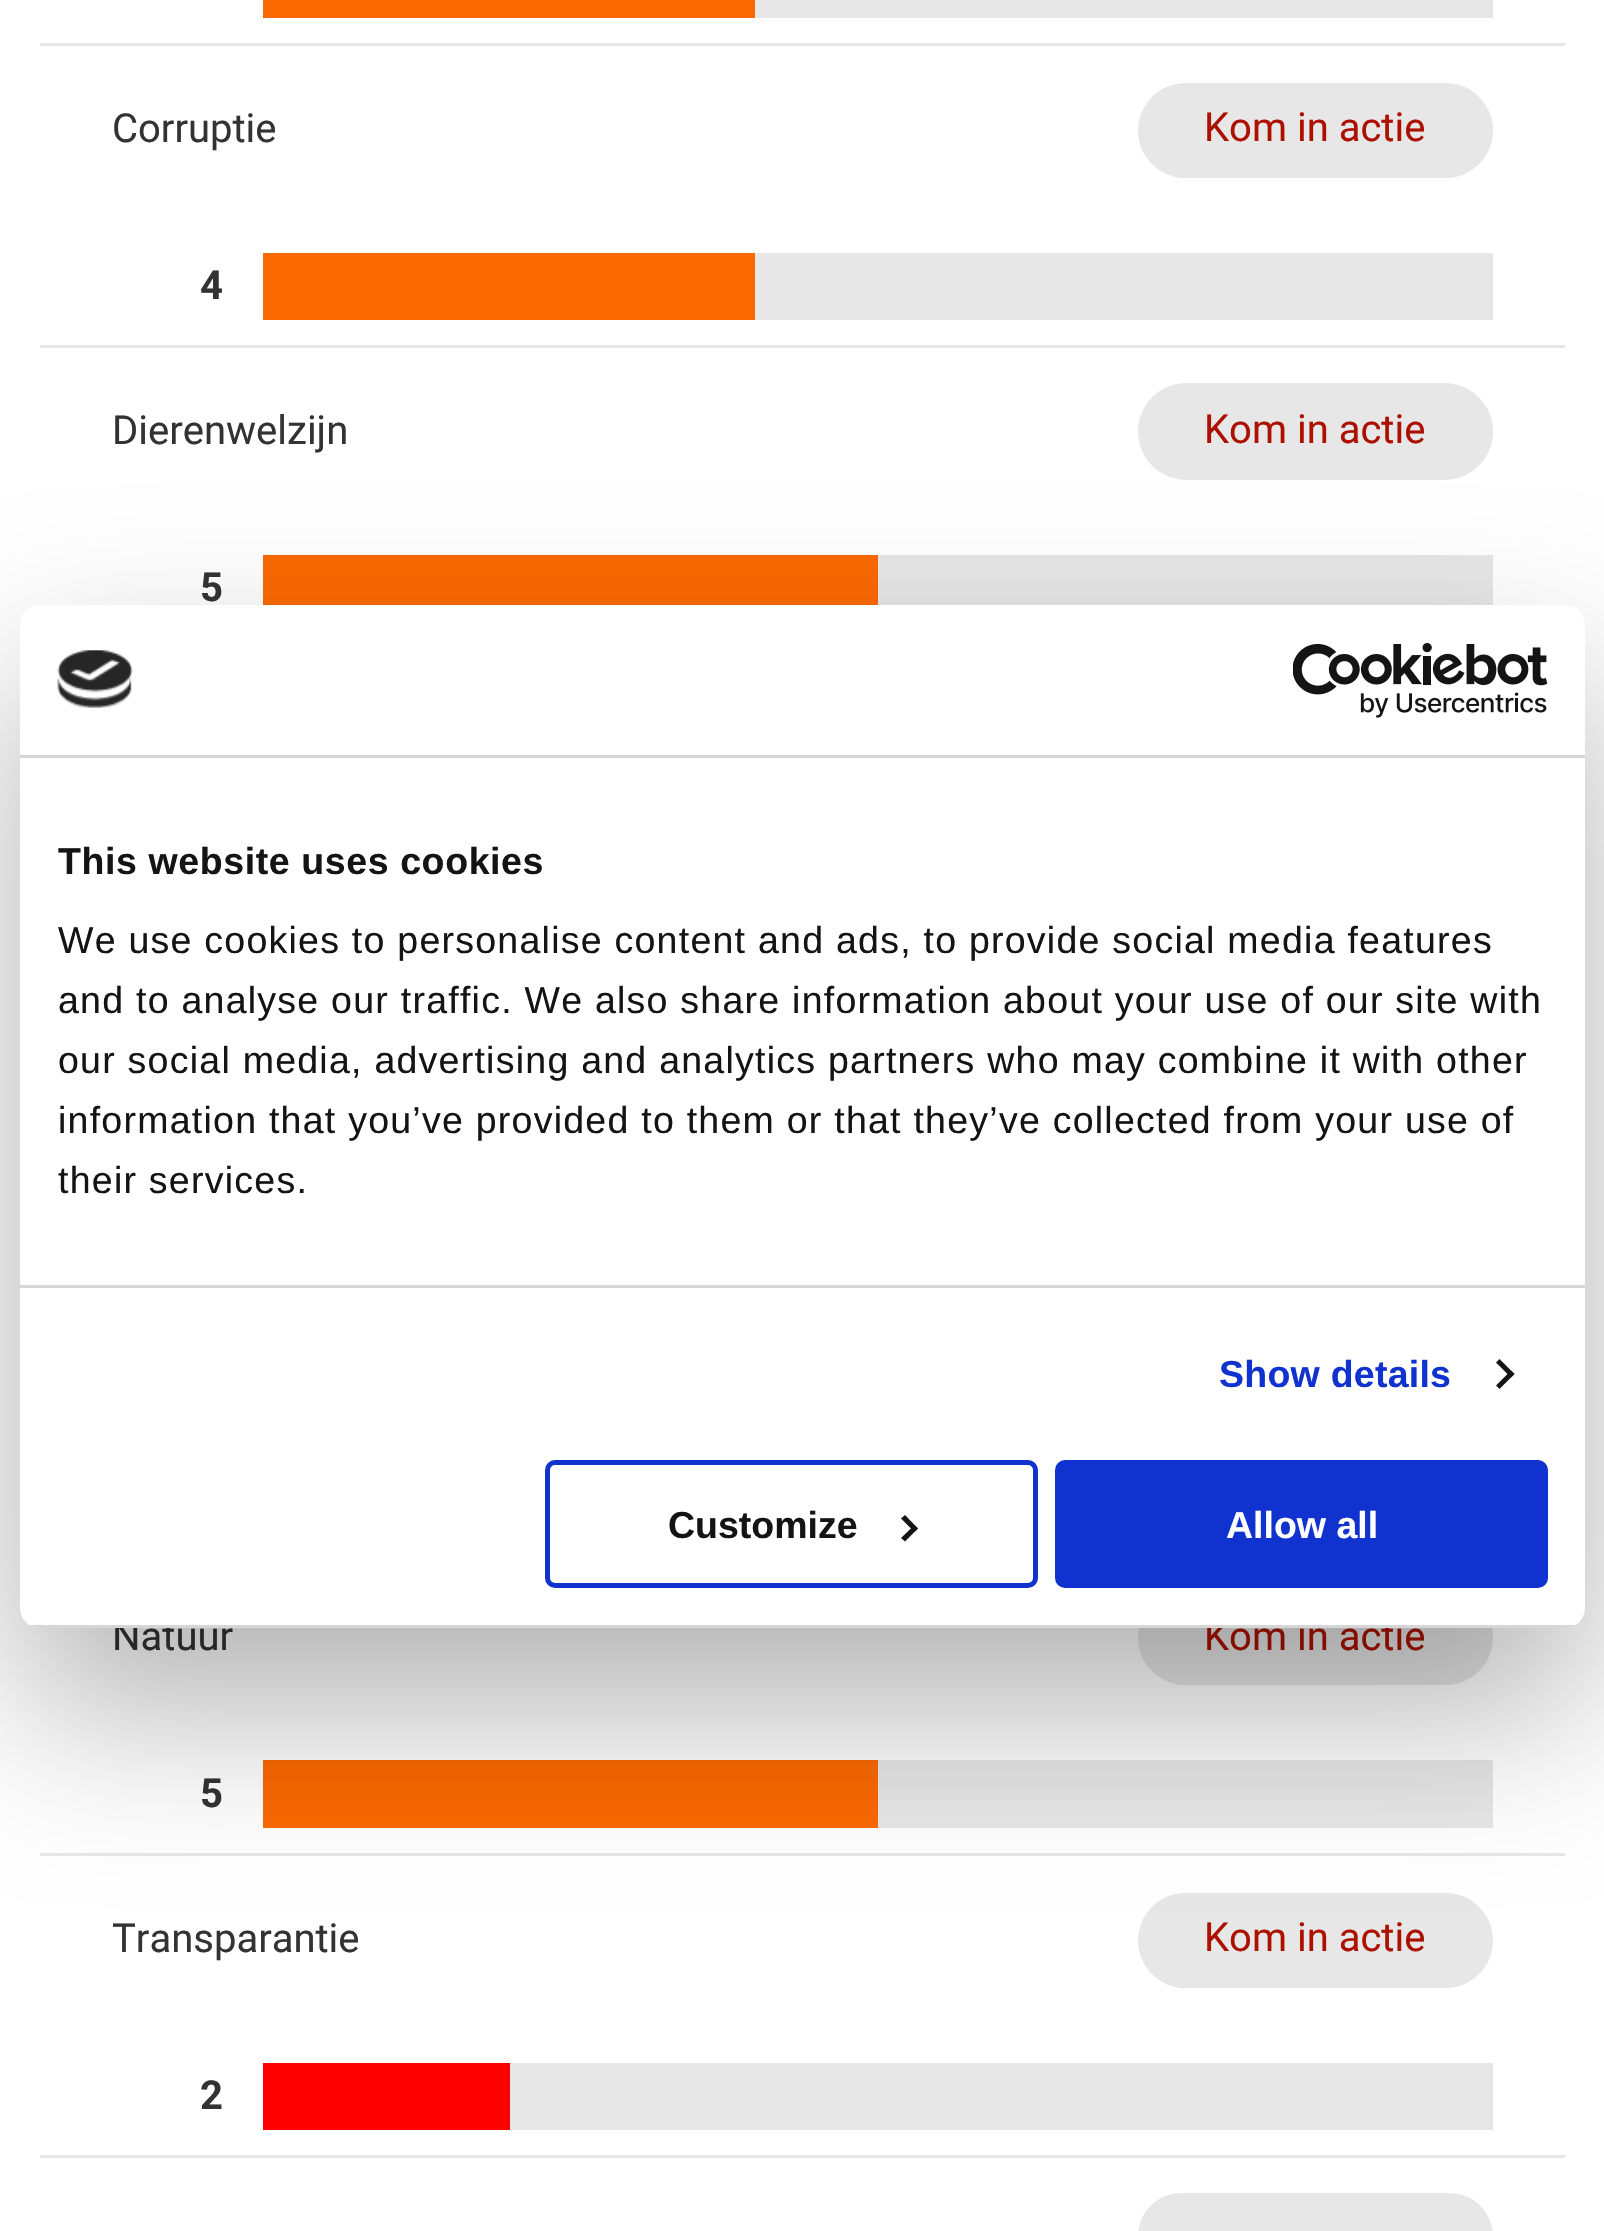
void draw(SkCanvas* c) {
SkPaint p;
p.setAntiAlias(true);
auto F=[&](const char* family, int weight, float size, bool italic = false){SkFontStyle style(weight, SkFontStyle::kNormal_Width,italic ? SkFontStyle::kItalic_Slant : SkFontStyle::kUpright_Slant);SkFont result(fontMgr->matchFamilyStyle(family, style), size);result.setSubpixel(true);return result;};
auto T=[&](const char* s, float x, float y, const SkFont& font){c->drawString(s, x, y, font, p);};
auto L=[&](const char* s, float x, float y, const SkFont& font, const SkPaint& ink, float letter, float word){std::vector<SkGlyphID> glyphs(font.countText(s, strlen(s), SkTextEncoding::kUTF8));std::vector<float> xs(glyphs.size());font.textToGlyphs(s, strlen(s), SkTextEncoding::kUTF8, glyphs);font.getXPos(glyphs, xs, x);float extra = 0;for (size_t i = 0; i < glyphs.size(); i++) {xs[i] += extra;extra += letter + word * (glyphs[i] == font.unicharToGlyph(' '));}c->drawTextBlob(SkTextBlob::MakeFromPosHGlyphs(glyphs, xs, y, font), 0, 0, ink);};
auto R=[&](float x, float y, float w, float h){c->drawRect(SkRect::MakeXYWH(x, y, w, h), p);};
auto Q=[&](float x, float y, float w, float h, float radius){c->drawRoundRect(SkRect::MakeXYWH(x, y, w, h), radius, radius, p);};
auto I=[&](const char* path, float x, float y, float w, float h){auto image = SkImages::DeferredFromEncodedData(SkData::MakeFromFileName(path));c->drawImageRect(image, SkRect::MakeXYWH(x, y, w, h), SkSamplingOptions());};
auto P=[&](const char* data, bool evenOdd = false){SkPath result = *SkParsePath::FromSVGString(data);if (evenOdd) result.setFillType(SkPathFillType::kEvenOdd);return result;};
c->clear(0xffffffff);
p.setColor(0xffe7e7e7);
R(40,43,1525,3);
R(755,0,738,18);
p.setColor(0xfffc6900);
R(263,0,492,18);
p.setColor(0xffe7e7e7);
R(40,345,1525,3);
auto f1 = F("Roboto",400,40);
p.setColor(0xff333333);
T("Corruptie",112,142,f1);
p.setColor(0xffe7e7e7);
Q(1138,83,355,95,47.5);
p.setColor(0xffac1100);
T("Kom in actie",1204,141,f1);
auto f2 = F("Roboto",700,40);
p.setColor(0xff333333);
T("4",200,299,f2);
p.setColor(0xffe7e7e7);
R(755,253,738,67);
p.setColor(0xfffc6900);
R(263,253,492,67);
p.setColor(0xff333333);
T("Dierenwelzijn",112,444,f1);
p.setColor(0xffe7e7e7);
Q(1138,383,355,97,48.5);
p.setColor(0xffac1100);
T("Kom in actie",1204,443,f1);
p.setColor(0xff333333);
T("5",200,601,f2);
p.setColor(0xffe7e7e7);
R(878,555,615,50);
p.setColor(0xfffc6900);
R(263,555,615,50);
p.setColor(0xffe7e7e7);
R(40,1853,1525,3);
p.setColor(0xff333333);
T("Natuur",112,1650,f1);
p.setColor(0xffe7e7e7);
Q(1138,1590,355,95,47.5);
p.setColor(0xffac1100);
T("Kom in actie",1204,1650,f1);
p.setColor(0xff333333);
T("5",200,1807,f2);
p.setColor(0xffe7e7e7);
R(878,1760,615,68);
p.setColor(0xfffc6900);
R(263,1760,615,68);
p.setColor(0xffe7e7e7);
R(40,2155,1525,3);
p.setColor(0xff333333);
T("Transparantie",112,1952,f1);
p.setColor(0xffe7e7e7);
Q(1138,1893,355,95,47.5);
p.setColor(0xffac1100);
T("Kom in actie",1204,1951,f1);
p.setColor(0xff333333);
T("2",200,2109,f2);
p.setColor(0xffe7e7e7);
R(510,2063,983,67);
p.setColor(0xffff0000);
R(263,2063,247,67);
p.setColor(0xffe7e7e7);
Q(1138,2193,355,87,48.5);
p.setColor(0x4d000000);
p.setMaskFilter(SkMaskFilter::MakeBlur(kNormal_SkBlurStyle, 85));
c->drawRoundRect(SkRect::MakeXYWH(20,685,1565,1023),20,20,p);
p.setMaskFilter(nullptr);
p.setColor(0xffffffff);
Q(20,605,1565,1023,20);
p.setColor(0xffd6d6d6);
R(20,755,1565,3);
I("1.png",57,650,76,58);
I("2.png",1293,643,255,75);
R(20,1285,1565,3);
auto f3 = F("Liberation Sans",700,37.5);
p.setColor(0xff141414);
L("This website uses cookies",58,874,f3,p,.6,0);
auto f4 = F("Liberation Sans",400,37.5);
L("We use cookies to personalise content and ads, to provide social media features",58,953,f4,p,1.25,0);
L("and to analyse our traffic. We also share information about your use of our site with",58,1013,f4,p,1.25,0);
L("our social media, advertising and analytics partners who may combine it with other",58,1073,f4,p,1.25,0);
L("information that you’ve provided to them or that they’ve collected from your use of",58,1133,f4,p,1.25,0);
L("their services.",58,1193,f4,p,1.25,0);
p.setColor(0xff1032cf);
L("Show details",1219,1387,f3,p,.25,0);
p.setColor(0xff141414);
c->drawPath(P("M1499.5 1359l15 15l-3.5 3.5l-15-15z"),p);
c->drawPath(P("M1511 1370.5l3.5 3.5l-15 15l-3.5-3.5z"),p);
c->save();
c->clipPath(P("M40 605h1525c11 0 20 9 20 20v983c0 11-9 20-20 20h-1525c-11 0-20-9-20-20v-983c0-11 9-20 20-20z"),true);
p.setColor(0xffd6d6d6);
R(29,1625,1547,3);
c->restore();
p.setStroke(true);
p.setStrokeWidth(5);
p.setColor(0xff1032cf);
c->drawRoundRect(SkRect::MakeXYWH(547.5,1462.5,488,123),7.5,7.5,p);
p.setStroke(false);
p.setColor(0xff141414);
T("Customize",668,1538,f3);
c->drawPath(P("M905 1515l13 13.5l-3.5 3.5l-13.5-13.5z"),p);
c->drawPath(P("M914.5 1525l3.5 3.5l-13 13l-4-3.5z"),p);
p.setColor(0xff1032cf);
c->drawRoundRect(SkRect::MakeXYWH(1057.5,1462.5,488,123),7.5,7.5,p);
p.setStroke(true);
c->drawRoundRect(SkRect::MakeXYWH(1057.5,1462.5,488,123),7.5,7.5,p);
p.setStroke(false);
p.setColor(0xffffffff);
T("Allow all",1226,1538,f3);
}
